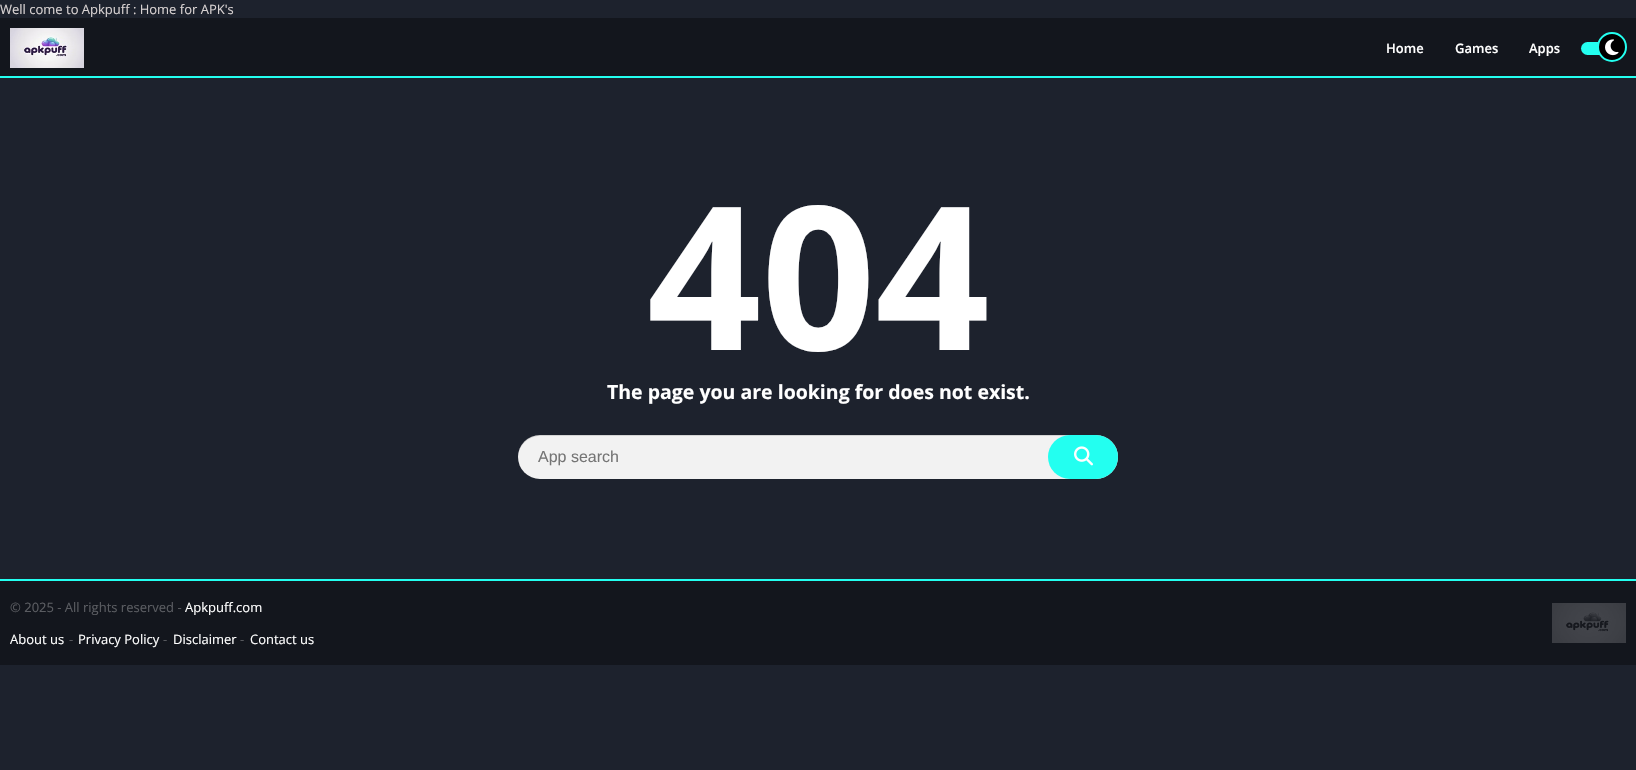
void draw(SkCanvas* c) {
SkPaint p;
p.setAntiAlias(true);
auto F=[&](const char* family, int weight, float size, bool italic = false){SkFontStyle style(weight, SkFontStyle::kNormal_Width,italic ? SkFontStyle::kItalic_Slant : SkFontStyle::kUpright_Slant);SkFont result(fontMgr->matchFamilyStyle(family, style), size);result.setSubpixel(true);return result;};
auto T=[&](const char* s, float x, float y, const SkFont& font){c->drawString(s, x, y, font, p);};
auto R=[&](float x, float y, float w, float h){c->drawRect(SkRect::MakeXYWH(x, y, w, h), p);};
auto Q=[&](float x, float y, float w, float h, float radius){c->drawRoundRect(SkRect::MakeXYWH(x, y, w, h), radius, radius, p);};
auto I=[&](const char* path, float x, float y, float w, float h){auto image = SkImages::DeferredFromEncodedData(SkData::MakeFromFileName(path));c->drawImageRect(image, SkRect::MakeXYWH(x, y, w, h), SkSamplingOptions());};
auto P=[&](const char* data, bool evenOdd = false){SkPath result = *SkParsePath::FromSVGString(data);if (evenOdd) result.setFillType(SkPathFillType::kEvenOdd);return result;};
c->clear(0xff1d222d);
auto f1 = F("Open Sans",400,13);
p.setColor(0xffd8d2d2);
T("Well come to Apkpuff : Home for APK's",0,14,f1);
p.setColor(0xff13161d);
R(0,18,1636,58);
p.setColor(0xff23fff0);
R(0,76,1636,2);
I("1.png",10,28,74,40);
auto f2 = F("Open Sans",600,13);
p.setColor(0xffffffff);
T("Home",1386,53,f2);
T("Games",1455,53,f2);
T("Apps",1529,53,f2);
p.setColor(0xff23fff0);
Q(1581,42,45,13,6.5);
p.setColor(0xff000000);
c->drawCircle(1612,47,14,p);
p.setStroke(true);
p.setStrokeWidth(2);
p.setColor(0xff23fff0);
c->drawCircle(1612,47,14,p);
I("2.png",1605,39,14,17);
auto f3 = F("Open Sans",700,200);
p.setStroke(false);
p.setColor(0xffffffff);
T("404",647,350,f3);
auto f4 = F("Open Sans",700,19.5);
T("The page you are looking for does not exist.",607,399,f4);
p.setColor(0xfff2f2f2);
Q(518,435,600,44,22);
p.setColor(0x1f000000);
c->drawPath(P("M540 436h556c12 0 22 10 22 22v-1c0-12-10-22-22-22h-556c-12 0-22 10-22 22v1c0-12 10-22 22-22z"),p);
auto f5 = F("Liberation Sans",400,16);
p.setColor(0xff757575);
T("App search",538,462,f5);
p.setColor(0xff23fff0);
Q(1048,435,70,44,22);
I("3.png",1074,446,19,20);
p.setColor(0xff13161d);
R(0,581,1636,84);
p.setColor(0xff23fff0);
R(0,579,1636,2);
p.setColor(0xff5a5c61);
T("© 2025 - All rights reserved -",10,612,f1);
p.setColor(0xffffffff);
T("Apkpuff.com",185,612,f1);
T("About us",10,644,f1);
p.setColor(0xff5a5c61);
T("-",69,644,f1);
p.setColor(0xffffffff);
T("Privacy Policy",78,644,f1);
p.setColor(0xff5a5c61);
T("-",163,644,f1);
p.setColor(0xffffffff);
T("Disclaimer",173,644,f1);
p.setColor(0xff5a5c61);
T("-",240,644,f1);
p.setColor(0xffffffff);
T("Contact us",250,644,f1);
I("4.png",1552,603,74,40);
}
